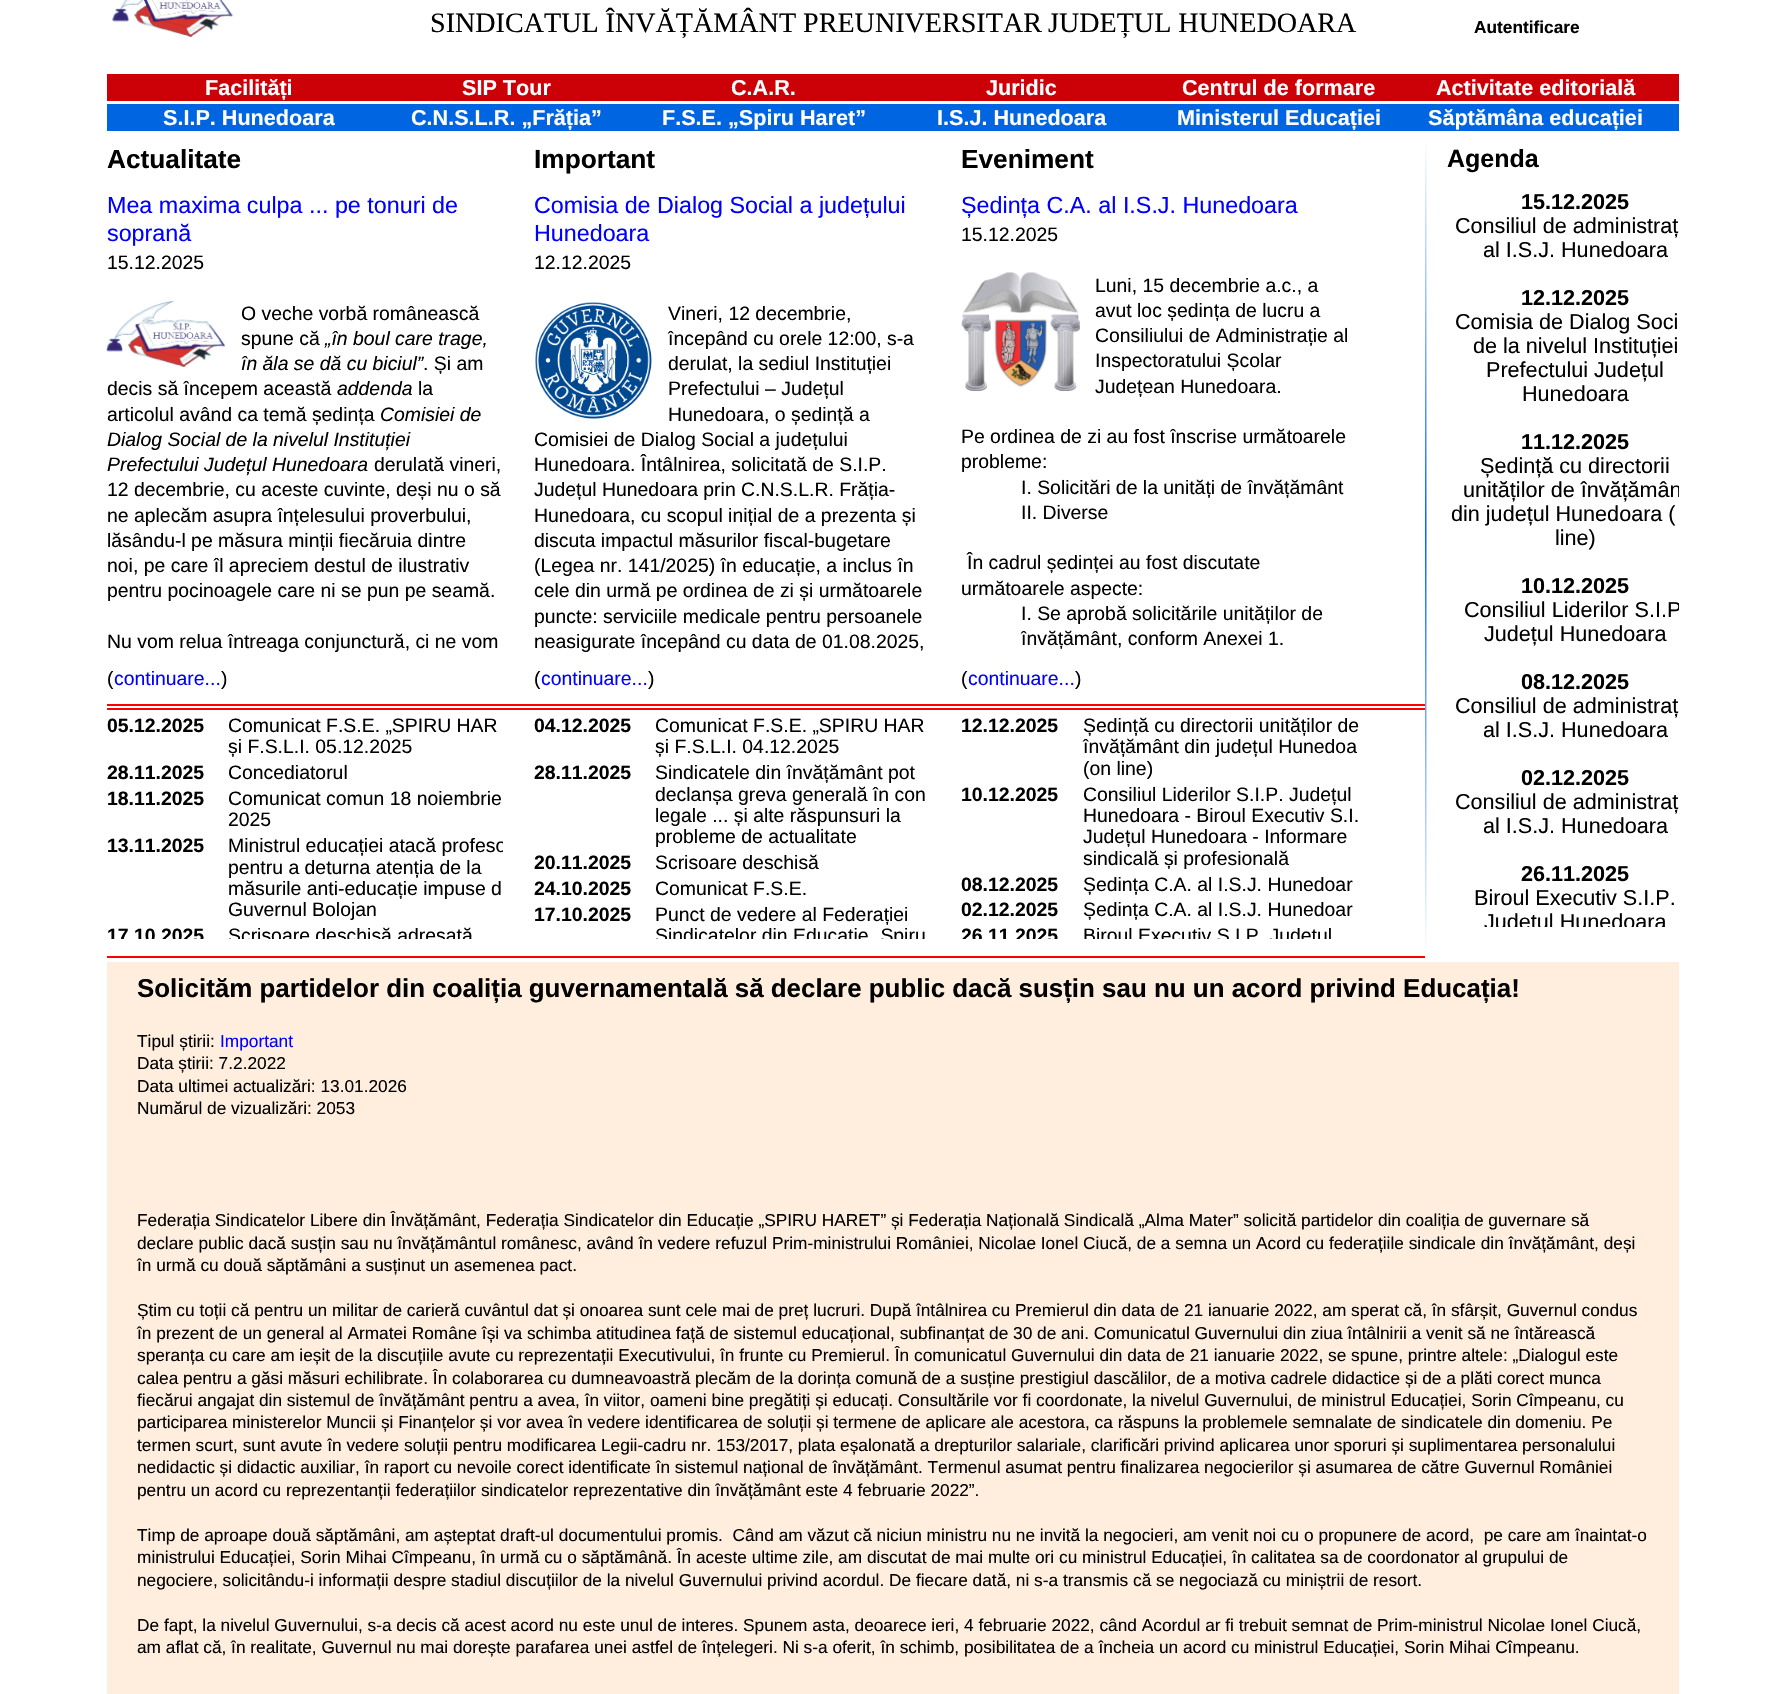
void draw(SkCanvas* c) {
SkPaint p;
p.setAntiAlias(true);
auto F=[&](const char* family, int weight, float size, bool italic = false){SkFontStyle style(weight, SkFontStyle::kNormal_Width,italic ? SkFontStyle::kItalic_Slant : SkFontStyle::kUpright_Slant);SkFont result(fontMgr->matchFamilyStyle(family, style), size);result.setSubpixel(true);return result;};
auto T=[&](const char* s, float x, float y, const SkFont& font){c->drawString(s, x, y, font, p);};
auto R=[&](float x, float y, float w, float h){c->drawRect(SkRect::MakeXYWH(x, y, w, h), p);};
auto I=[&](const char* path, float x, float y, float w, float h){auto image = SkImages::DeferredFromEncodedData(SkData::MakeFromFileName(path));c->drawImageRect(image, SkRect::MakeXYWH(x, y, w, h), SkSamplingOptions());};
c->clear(0xffffffff);
I("1.png",112,0,121,37);
auto f1 = F("Liberation Serif",400,28.1);
p.setColor(0xff000000);
T("SINDICATUL ÎNVĂȚĂMÂNT PREUNIVERSITAR",430,32,f1);
T("JUDEȚUL HUNEDOARA",1048,32,f1);
auto f2 = F("Liberation Sans",700,17.28);
T("Autentificare",1474,33,f2);
p.setColor(0xffcc0000);
R(107,74,1572,27);
p.setColor(0xffcc0007);
R(107,75,1572,24);
auto f3 = F("Liberation Sans",700,21.6);
p.setColor(0xffffffff);
T("Facilități",205,95,f3);
T("SIP Tour",462,95,f3);
T("C.A.R.",731,95,f3);
T("Juridic",986,95,f3);
T("Centrul de formare",1182,95,f3);
T("Activitate editorială",1436,95,f3);
p.setColor(0xff0065e0);
R(107,104,1572,27);
p.setColor(0xffffffff);
T("S.I.P. Hunedoara",163,125,f3);
T("C.N.S.L.R. „Frăția”",411,125,f3);
T("F.S.E. „Spiru Haret”",662,125,f3);
T("I.S.J. Hunedoara",937,125,f3);
T("Ministerul Educației",1177,125,f3);
T("Săptămâna educației",1428,125,f3);
I("2.png",1425,145,2,804);
p.setColor(0xffff0000);
R(107,704,1318,2);
auto f4 = F("Liberation Sans",700,26.25);
p.setColor(0xff000000);
T("Actualitate",107,168,f4);
auto f5 = F("Liberation Sans",400,23.3);
p.setColor(0xff0000ff);
T("Mea maxima culpa ... pe tonuri de",107,213,f5);
T("soprană",107,241,f5);
auto f6 = F("Liberation Sans",400,19.4);
p.setColor(0xff000000);
T("15.12.2025",107,269,f6);
I("3.png",106,301,119,66);
T("O veche vorbă românească",241,320,f6);
T("spune că",241,345,f6);
auto f7 = F("Liberation Sans",400,19.4,true);
T("„în boul care trage,",325,345,f7);
T("în ăla se dă cu biciul”",241,370,f7);
T(". Și am",423,370,f6);
T("decis să începem această",107,395,f6);
T("addenda",337,395,f7);
T("la",418,395,f6);
T("articolul având ca temă ședința",107,421,f6);
T("Comisiei de",380,421,f7);
T("Dialog Social de la nivelul Instituției",107,446,f7);
T("Prefectului Județul Hunedoara",107,471,f7);
T("derulată vineri,",374,471,f6);
T("12 decembrie, cu aceste cuvinte, deși nu o să",107,496,f6);
T("ne aplecăm asupra înțelesului proverbului,",107,522,f6);
T("lăsându-l pe măsura minții fiecăruia dintre",107,547,f6);
T("noi, pe care îl apreciem destul de ilustrativ",107,572,f6);
T("pentru pocinoagele care ni se pun pe seamă.",107,597,f6);
T("Nu vom relua întreaga conjunctură, ci ne vom",107,648,f6);
T("(",107,685,f6);
p.setColor(0xff0000ff);
T("continuare...",114,685,f6);
p.setColor(0xff000000);
T(")",221,685,f6);
T("Important",534,168,f4);
p.setColor(0xff0000ff);
T("Comisia de Dialog Social a județului",534,213,f5);
T("Hunedoara",534,241,f5);
p.setColor(0xff000000);
T("12.12.2025",534,269,f6);
I("4.png",535,302,117,117);
T("Vineri, 12 decembrie,",668,320,f6);
T("începând cu orele 12:00, s-a",668,345,f6);
T("derulat, la sediul Instituției",668,370,f6);
T("Prefectului – Județul",668,395,f6);
T("Hunedoara, o ședință a",668,421,f6);
T("Comisiei de Dialog Social a județului",534,446,f6);
T("Hunedoara. Întâlnirea, solicitată de S.I.P.",534,471,f6);
T("Județul Hunedoara prin C.N.S.L.R. Frăția-",534,496,f6);
T("Hunedoara, cu scopul inițial de a prezenta și",534,522,f6);
T("discuta impactul măsurilor fiscal-bugetare",534,547,f6);
T("(Legea nr. 141/2025) în educație, a inclus în",534,572,f6);
T("cele din urmă pe ordinea de zi și următoarele",534,597,f6);
T("puncte: serviciile medicale pentru persoanele",534,623,f6);
T("neasigurate începând cu data de 01.08.2025,",534,648,f6);
T("(",534,685,f6);
p.setColor(0xff0000ff);
T("continuare...",541,685,f6);
p.setColor(0xff000000);
T(")",648,685,f6);
T("Eveniment",961,168,f4);
p.setColor(0xff0000ff);
T("Ședința C.A. al I.S.J. Hunedoara",961,213,f5);
p.setColor(0xff000000);
T("15.12.2025",961,241,f6);
I("5.png",961,272,119,119);
T("Luni, 15 decembrie a.c., a",1095,292,f6);
T("avut loc ședința de lucru a",1095,317,f6);
T("Consiliului de Administrație al",1095,342,f6);
T("Inspectoratului Școlar",1095,367,f6);
T("Județean Hunedoara.",1095,393,f6);
T("Pe ordinea de zi au fost înscrise următoarele",961,443,f6);
T("probleme:",961,468,f6);
T("I. Solicitări de la unități de învățământ",1021,494,f6);
T("II. Diverse",1021,519,f6);
T("În cadrul ședinței au fost discutate",967,569,f6);
T("următoarele aspecte:",961,595,f6);
T("I. Se aprobă solicitările unităților de",1021,620,f6);
T("învățământ, conform Anexei 1.",1021,645,f6);
T("(",961,685,f6);
p.setColor(0xff0000ff);
T("continuare...",968,685,f6);
p.setColor(0xff000000);
T(")",1075,685,f6);
p.setColor(0xffff0000);
R(107,708,1318,2);
R(107,956,1318,2);
auto f8 = F("Liberation Sans",700,19.4);
p.setColor(0xff000000);
T("05.12.2025",107,732,f8);
T("Comunicat F.S.E. „SPIRU HAR",228,732,f6);
T("și F.S.L.I. 05.12.2025",228,753,f6);
T("28.11.2025",107,779,f8);
T("Concediatorul",228,779,f6);
T("18.11.2025",107,805,f8);
T("Comunicat comun 18 noiembrie",228,805,f6);
T("2025",228,826,f6);
T("13.11.2025",107,852,f8);
c->save();
c->clipRect(SkRect::MakeXYWH(228,836,275,85));
T("Ministrul educației atacă profeso",228,852,f6);
c->restore();
T("pentru a deturna atenția de la",228,874,f6);
T("măsurile anti-educație impuse d",228,895,f6);
T("Guvernul Bolojan",228,916,f6);
c->save();
c->clipRect(SkRect::MakeXYWH(107,711,396,228));
T("17.10.2025",107,942,f8);
c->restore();
c->save();
c->clipRect(SkRect::MakeXYWH(228,926,275,13));
T("Scrisoare deschisă adresată",228,942,f6);
c->restore();
T("04.12.2025",534,732,f8);
T("Comunicat F.S.E. „SPIRU HAR",655,732,f6);
T("și F.S.L.I. 04.12.2025",655,753,f6);
T("28.11.2025",534,779,f8);
T("Sindicatele din învățământ pot",655,779,f6);
T("declanșa greva generală în con",655,801,f6);
T("legale ... și alte răspunsuri la",655,822,f6);
T("probleme de actualitate",655,843,f6);
T("20.11.2025",534,869,f8);
T("Scrisoare deschisă",655,869,f6);
T("24.10.2025",534,895,f8);
T("Comunicat F.S.E.",655,895,f6);
T("17.10.2025",534,921,f8);
T("Punct de vedere al Federației",655,921,f6);
c->save();
c->clipRect(SkRect::MakeXYWH(656,905,274,34));
T("Sindicatelor din Educație „Spiru",655,942,f6);
c->restore();
T("12.12.2025",961,732,f8);
T("Ședință cu directorii unităților de",1083,732,f6);
T("învățământ din județul Hunedoa",1083,753,f6);
T("(on line)",1083,775,f6);
T("10.12.2025",961,801,f8);
T("Consiliul Liderilor S.I.P. Județul",1083,801,f6);
T("Hunedoara - Biroul Executiv S.I.",1083,822,f6);
T("Județul Hunedoara - Informare",1083,843,f6);
T("sindicală și profesională",1083,865,f6);
T("08.12.2025",961,891,f8);
T("Ședința C.A. al I.S.J. Hunedoar",1083,891,f6);
T("02.12.2025",961,916,f8);
T("Ședința C.A. al I.S.J. Hunedoar",1083,916,f6);
c->save();
c->clipRect(SkRect::MakeXYWH(962,711,396,228));
T("26.11.2025",961,942,f8);
c->restore();
c->save();
c->clipRect(SkRect::MakeXYWH(1083,926,275,13));
T("Biroul Executiv S.I.P. Județul",1083,942,f6);
c->restore();
auto f9 = F("Liberation Sans",700,25);
T("Agenda",1447,167,f9);
T("15.12.2025",1521,209,f3);
auto f10 = F("Liberation Sans",400,21.6);
T("Consiliul de administraț",1455,233,f10);
T("al I.S.J. Hunedoara",1483,257,f10);
T("12.12.2025",1521,305,f3);
T("Comisia de Dialog Soci",1455,329,f10);
T("de la nivelul Instituției",1473,353,f10);
T("Prefectului Județul",1486,377,f10);
T("Hunedoara",1522,401,f10);
T("11.12.2025",1521,449,f3);
T("Ședință cu directorii",1480,473,f10);
c->save();
c->clipRect(SkRect::MakeXYWH(1448,189,231,738));
T("unităților de învățămân",1463,497,f10);
c->restore();
T("din județul Hunedoara (",1451,521,f10);
T("line)",1555,545,f10);
T("10.12.2025",1521,593,f3);
c->save();
c->clipRect(SkRect::MakeXYWH(1448,189,231,738));
T("Consiliul Liderilor S.I.P",1464,617,f10);
c->restore();
T("Județul Hunedoara",1484,641,f10);
T("08.12.2025",1521,689,f3);
T("Consiliul de administraț",1455,713,f10);
T("al I.S.J. Hunedoara",1483,737,f10);
T("02.12.2025",1521,785,f3);
T("Consiliul de administraț",1455,809,f10);
T("al I.S.J. Hunedoara",1483,833,f10);
T("26.11.2025",1521,881,f3);
T("Biroul Executiv S.I.P.",1474,905,f10);
c->save();
c->clipRect(SkRect::MakeXYWH(1448,189,231,738));
T("Județul Hunedoara",1484,929,f10);
c->restore();
p.setColor(0xffffeedd);
R(107,962,1572,732);
auto f11 = F("Liberation Sans",700,25.92);
p.setColor(0xff000000);
T("Solicităm partidelor din coaliția guvernamentală să declare public dacă susțin sau nu un acord privind Educația!",137,997,f11);
auto f12 = F("Liberation Sans",400,17.28);
T("Tipul știrii:",137,1047,f12);
p.setColor(0xff0000ff);
T("Important",220,1047,f12);
p.setColor(0xff000000);
T("Data știrii: 7.2.2022",137,1069,f12);
T("Data ultimei actualizări: 13.01.2026",137,1092,f12);
T("Numărul de vizualizări: 2053",137,1114,f12);
T("Federația Sindicatelor Libere din Învățământ, Federația Sindicatelor din Educație „SPIRU HARET” și Federația Națională Sindicală „Alma Mater” solicită partidelor din coaliția de guvernare să",137,1226,f12);
T("declare public dacă susțin sau nu învățământul românesc, având în vedere refuzul Prim-ministrului României, Nicolae Ionel Ciucă, de a semna un Acord cu federațiile sindicale din învățământ, deși",137,1249,f12);
T("în urmă cu două săptămâni a susținut un asemenea pact.",137,1271,f12);
T("Știm cu toții că pentru un militar de carieră cuvântul dat și onoarea sunt cele mai de preț lucruri. După întâlnirea cu Premierul din data de 21 ianuarie 2022, am sperat că, în sfârșit, Guvernul condus",137,1316,f12);
T("în prezent de un general al Armatei Române își va schimba atitudinea față de sistemul educațional, subfinanțat de 30 de ani. Comunicatul Guvernului din ziua întâlnirii a venit să ne întărească",137,1339,f12);
T("speranța cu care am ieșit de la discuțiile avute cu reprezentații Executivului, în frunte cu Premierul. În comunicatul Guvernului din data de 21 ianuarie 2022, se spune, printre altele: „Dialogul este",137,1361,f12);
T("calea pentru a găsi măsuri echilibrate. În colaborarea cu dumneavoastră plecăm de la dorința comună de a susține prestigiul dascălilor, de a motiva cadrele didactice și de a plăti corect munca",137,1384,f12);
T("fiecărui angajat din sistemul de învățământ pentru a avea, în viitor, oameni bine pregătiți și educați. Consultările vor fi coordonate, la nivelul Guvernului, de ministrul Educației, Sorin Cîmpeanu, cu",137,1406,f12);
T("participarea ministerelor Muncii și Finanțelor și vor avea în vedere identificarea de soluții și termene de aplicare ale acestora, ca răspuns la problemele semnalate de sindicatele din domeniu. Pe",137,1428,f12);
T("termen scurt, sunt avute în vedere soluții pentru modificarea Legii-cadru nr. 153/2017, plata eșalonată a drepturilor salariale, clarificări privind aplicarea unor sporuri și suplimentarea personalului",137,1451,f12);
T("nedidactic și didactic auxiliar, în raport cu nevoile corect identificate în sistemul național de învățământ. Termenul asumat pentru finalizarea negocierilor și asumarea de către Guvernul României",137,1473,f12);
T("pentru un acord cu reprezentanții federațiilor sindicatelor reprezentative din învățământ este 4 februarie 2022”.",137,1496,f12);
T("Timp de aproape două săptămâni, am așteptat draft-ul documentului promis.  Când am văzut că niciun ministru nu ne invită la negocieri, am venit noi cu o propunere de acord,  pe care am înaintat-o",137,1541,f12);
T("ministrului Educației, Sorin Mihai Cîmpeanu, în urmă cu o săptămână. În aceste ultime zile, am discutat de mai multe ori cu ministrul Educației, în calitatea sa de coordonator al grupului de",137,1563,f12);
T("negociere, solicitându-i informații despre stadiul discuțiilor de la nivelul Guvernului privind acordul. De fiecare dată, ni s-a transmis că se negociază cu miniștrii de resort.",137,1586,f12);
T("De fapt, la nivelul Guvernului, s-a decis că acest acord nu este unul de interes. Spunem asta, deoarece ieri, 4 februarie 2022, când Acordul ar fi trebuit semnat de Prim-ministrul Nicolae Ionel Ciucă,",137,1631,f12);
T("am aflat că, în realitate, Guvernul nu mai dorește parafarea unei astfel de înțelegeri. Ni s-a oferit, în schimb, posibilitatea de a încheia un acord cu ministrul Educației, Sorin Mihai Cîmpeanu.",137,1653,f12);
}
